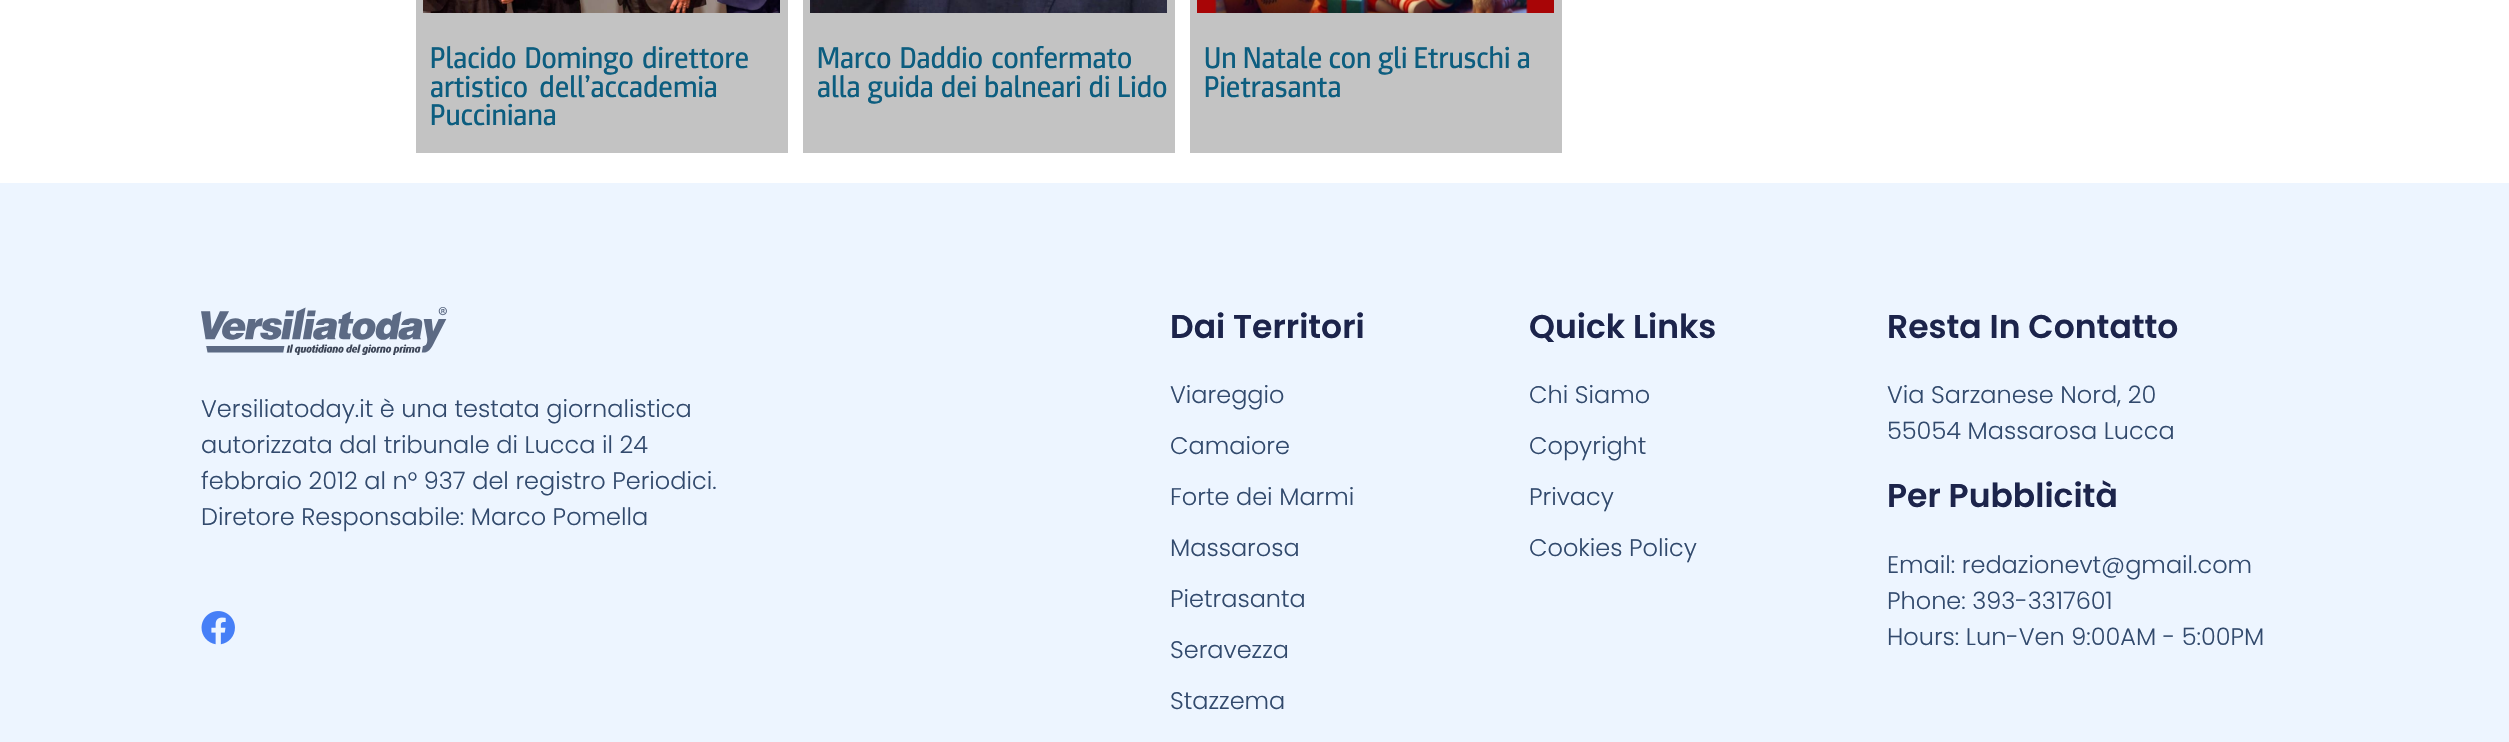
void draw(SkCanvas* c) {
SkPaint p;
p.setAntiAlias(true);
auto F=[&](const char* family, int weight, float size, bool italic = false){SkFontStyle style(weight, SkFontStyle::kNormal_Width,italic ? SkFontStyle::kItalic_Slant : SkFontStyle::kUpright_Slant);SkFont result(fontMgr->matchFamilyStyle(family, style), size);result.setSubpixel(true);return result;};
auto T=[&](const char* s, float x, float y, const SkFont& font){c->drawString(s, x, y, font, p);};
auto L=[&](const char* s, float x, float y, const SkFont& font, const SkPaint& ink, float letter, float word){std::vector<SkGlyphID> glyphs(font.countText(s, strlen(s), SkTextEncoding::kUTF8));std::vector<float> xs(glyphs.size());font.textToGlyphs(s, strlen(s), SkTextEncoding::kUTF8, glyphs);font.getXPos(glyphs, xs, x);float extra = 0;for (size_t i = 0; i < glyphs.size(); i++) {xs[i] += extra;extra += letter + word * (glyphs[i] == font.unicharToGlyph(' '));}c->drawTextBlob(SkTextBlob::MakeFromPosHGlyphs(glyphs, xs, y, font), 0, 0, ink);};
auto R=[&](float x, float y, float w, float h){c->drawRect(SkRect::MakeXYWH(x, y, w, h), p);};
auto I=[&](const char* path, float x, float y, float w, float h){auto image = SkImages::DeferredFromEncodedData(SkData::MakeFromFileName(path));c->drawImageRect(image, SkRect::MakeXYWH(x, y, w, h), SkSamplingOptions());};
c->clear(0xffffffff);
p.setColor(0xffc3c3c3);
R(416,0,372,153);
I("1.png",423,0,357,13);
auto f1 = F("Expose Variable",400,30);
p.setColor(0xff0c5d7f);
L("Placido Domingo direttore",430,68,f1,p,0,3);
L("artistico dell’accademia",430,97,f1,p,0,6);
T("Pucciniana",430,125,f1);
p.setColor(0xffc3c3c3);
R(803,0,372,153);
I("2.png",810,0,357,13);
p.setColor(0xff0c5d7f);
L("Marco Daddio confermato",817,68,f1,p,0,3);
L("alla guida dei balneari di Lido",817,97,f1,p,0,1.5);
p.setColor(0xffc3c3c3);
R(1190,0,372,153);
I("3.png",1197,0,357,13);
p.setColor(0xff0c5d7f);
L("Un Natale con gli Etruschi a",1204,68,f1,p,0,1);
T("Pietrasanta",1204,97,f1);
p.setColor(0xffedf5ff);
R(0,183,2509,559);
I("4.png",201,307,246,48);
auto f2 = F("Poppins",300,24);
p.setColor(0xff324a6d);
T("Versiliatoday.it è una testata giornalistica",201,417,f2);
T("autorizzata dal tribunale di Lucca il 24",201,453,f2);
T("febbraio 2012 al n° 937 del registro Periodici.",201,489,f2);
T("Diretore Responsabile: Marco Pomella",201,525,f2);
I("5.png",201,611,34,34);
auto f3 = F("Poppins",600,33);
p.setColor(0xff1c244b);
T("Dai Territori",1170,338,f3);
p.setColor(0xff324a6d);
T("Viareggio",1170,403,f2);
T("Camaiore",1170,454,f2);
T("Forte dei Marmi",1170,505,f2);
T("Massarosa",1170,556,f2);
T("Pietrasanta",1170,607,f2);
T("Seravezza",1170,658,f2);
T("Stazzema",1170,709,f2);
p.setColor(0xff1c244b);
T("Quick Links",1529,338,f3);
p.setColor(0xff324a6d);
T("Chi Siamo",1529,403,f2);
T("Copyright",1529,454,f2);
T("Privacy",1529,505,f2);
T("Cookies Policy",1529,556,f2);
p.setColor(0xff1c244b);
T("Resta In Contatto",1887,338,f3);
p.setColor(0xff324a6d);
T("Via Sarzanese Nord, 20",1887,403,f2);
T("55054 Massarosa Lucca",1887,439,f2);
p.setColor(0xff1c244b);
T("Per Pubblicità",1887,507,f3);
p.setColor(0xff324a6d);
T("Email: redazionevt@gmail.com",1887,573,f2);
T("Phone: 393-3317601",1887,609,f2);
T("Hours: Lun-Ven 9:00AM - 5:00PM",1887,645,f2);
}
